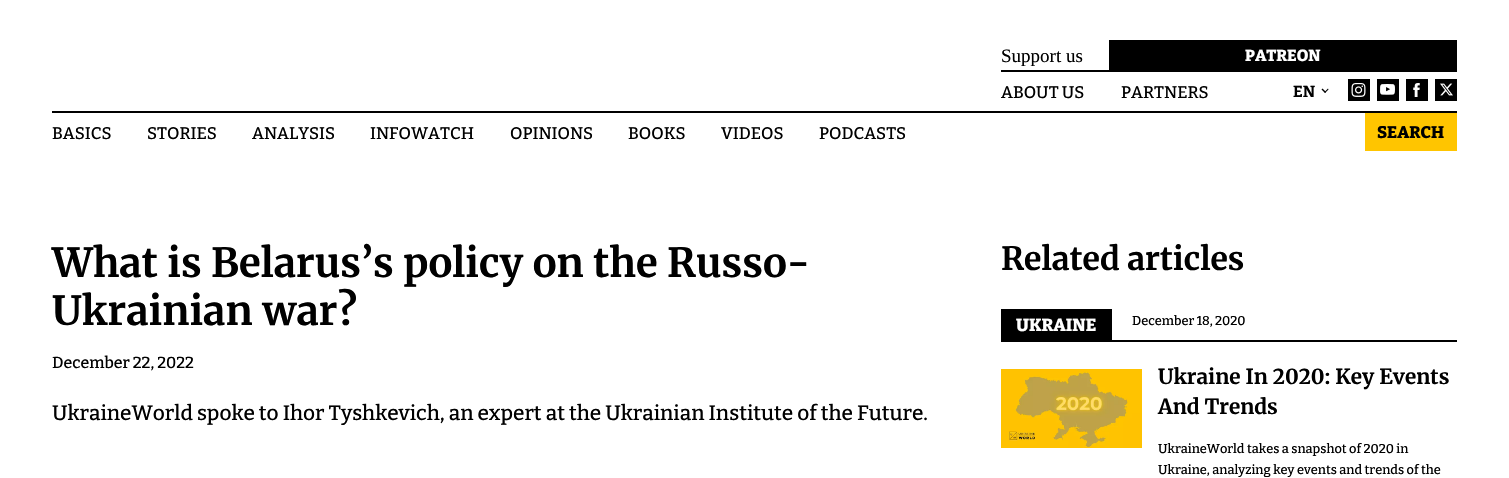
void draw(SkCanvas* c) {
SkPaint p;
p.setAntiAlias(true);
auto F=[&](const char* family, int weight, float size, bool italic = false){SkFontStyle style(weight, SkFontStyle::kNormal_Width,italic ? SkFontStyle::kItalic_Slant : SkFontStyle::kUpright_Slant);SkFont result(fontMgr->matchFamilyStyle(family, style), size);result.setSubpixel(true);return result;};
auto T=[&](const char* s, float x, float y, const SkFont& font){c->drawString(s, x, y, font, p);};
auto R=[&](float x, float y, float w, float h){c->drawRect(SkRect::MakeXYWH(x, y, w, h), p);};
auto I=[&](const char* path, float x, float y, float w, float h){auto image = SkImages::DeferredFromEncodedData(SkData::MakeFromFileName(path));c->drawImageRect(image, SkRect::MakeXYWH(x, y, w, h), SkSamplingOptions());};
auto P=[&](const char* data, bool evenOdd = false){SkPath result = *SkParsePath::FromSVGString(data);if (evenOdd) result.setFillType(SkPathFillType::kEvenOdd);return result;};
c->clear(0xffffffff);
auto f1 = F("Liberation Serif",400,19);
p.setColor(0xff000000);
T("Support us",1001,62,f1);
R(1109,40,348,30);
auto f2 = F("Bitter",800,16);
p.setColor(0xffffffff);
T("PATREON",1245,61,f2);
p.setColor(0xff000000);
R(1001,70,456,2);
auto f3 = F("Bitter",500,16.75);
T("ABOUT US",1001,98,f3);
T("PARTNERS",1121,98,f3);
auto f4 = F("Bitter",700,16);
T("EN",1293,97,f4);
c->drawPath(P("M1328 88.5l.5 1l-3.5 3.5l-.5-1z"),p);
c->drawPath(P("M1322.5 88.5l3.5 3.5l-1 1l-3.5-3.5z"),p);
R(1348,79,22,22);
I("1.png",1351,83,15,14);
R(1377,79,22,22);
I("2.png",1380,84,15,11);
R(1406,79,22,22);
I("3.png",1413,83,7,14);
R(1435,79,22,22);
I("4.png",1440,83,13,13);
R(52,111,1405,2);
T("BASICS",52,139,f3);
T("STORIES",147,139,f3);
T("ANALYSIS",252,139,f3);
T("INFOWATCH",370,139,f3);
T("OPINIONS",510,139,f3);
T("BOOKS",628,139,f3);
T("VIDEOS",721,139,f3);
T("PODCASTS",819,139,f3);
p.setColor(0xffffc500);
R(1365,113,92,38);
auto f5 = F("Bitter",800,16.75);
p.setColor(0xff000000);
T("SEARCH",1377,138,f5);
auto f6 = F("Merriweather",300,40);
T("What is Belarus’s policy on the Russo-",52,277,f6);
T("Ukrainian war?",52,325,f6);
auto f7 = F("Bitter",500,16);
T("December 22, 2022",52,368,f7);
auto f8 = F("Bitter",500,20.85);
T("UkraineWorld spoke to Ihor Tyshkevich, an expert at the Ukrainian Institute of the Future.",52,420,f8);
auto f9 = F("Merriweather",300,32);
T("Related articles",1001,270,f9);
R(1001,309,111,31);
auto f10 = F("Bitter",800,17.5);
p.setColor(0xffffffff);
T("UKRAINE",1016,331,f10);
auto f11 = F("Bitter",500,12.8);
p.setColor(0xff000000);
T("December 18, 2020",1132,325,f11);
R(1001,340,456,2);
I("5.png",1001,369,141,79);
auto f12 = F("Merriweather",300,20.75);
T("Ukraine In 2020: Key Events",1158,384,f12);
T("And Trends",1158,414,f12);
T("UkraineWorld takes a snapshot of 2020 in",1158,453,f11);
T("Ukraine, analyzing key events and trends of the",1158,474,f11);
}
